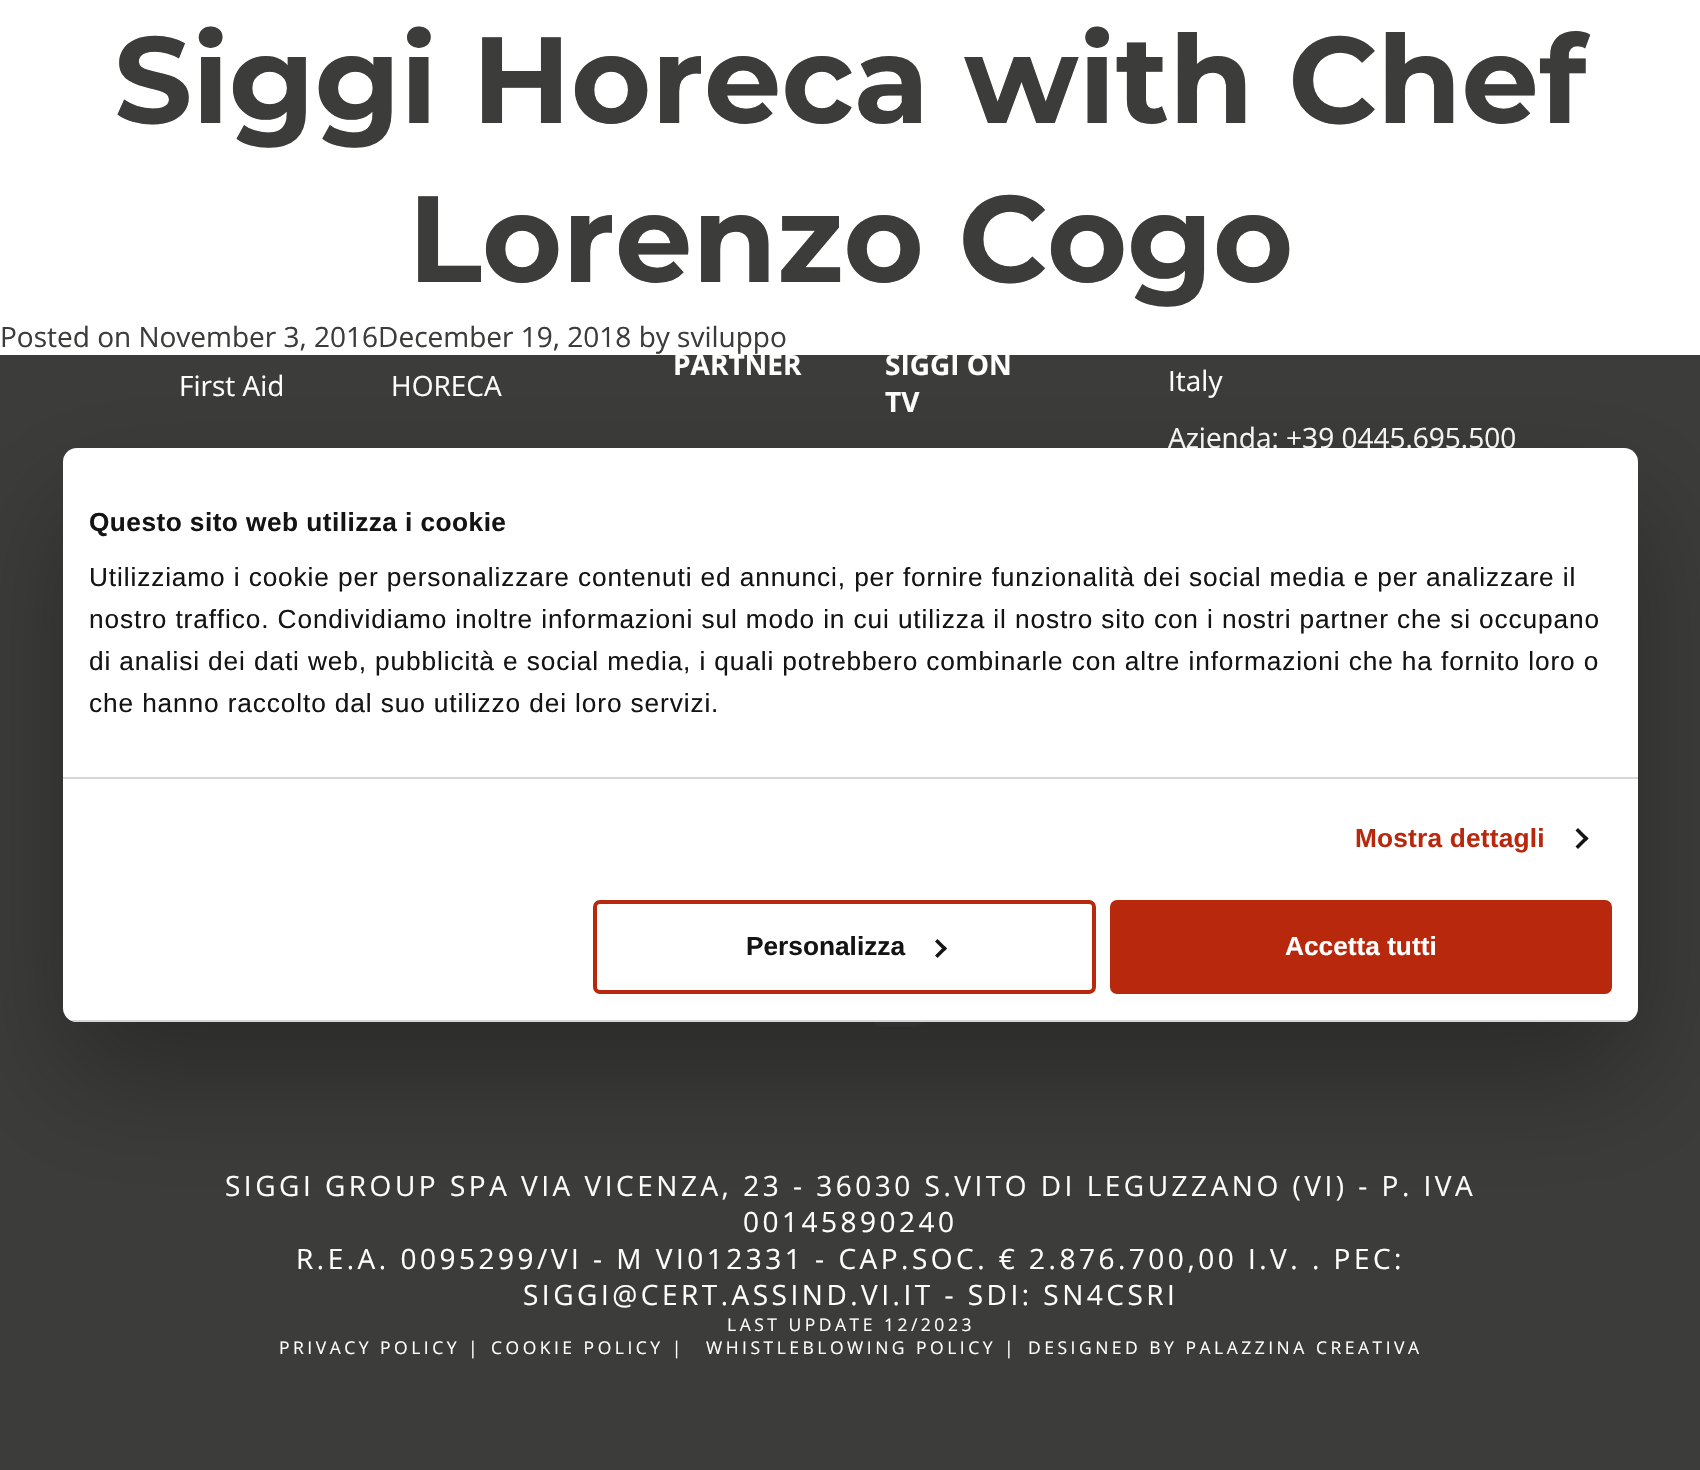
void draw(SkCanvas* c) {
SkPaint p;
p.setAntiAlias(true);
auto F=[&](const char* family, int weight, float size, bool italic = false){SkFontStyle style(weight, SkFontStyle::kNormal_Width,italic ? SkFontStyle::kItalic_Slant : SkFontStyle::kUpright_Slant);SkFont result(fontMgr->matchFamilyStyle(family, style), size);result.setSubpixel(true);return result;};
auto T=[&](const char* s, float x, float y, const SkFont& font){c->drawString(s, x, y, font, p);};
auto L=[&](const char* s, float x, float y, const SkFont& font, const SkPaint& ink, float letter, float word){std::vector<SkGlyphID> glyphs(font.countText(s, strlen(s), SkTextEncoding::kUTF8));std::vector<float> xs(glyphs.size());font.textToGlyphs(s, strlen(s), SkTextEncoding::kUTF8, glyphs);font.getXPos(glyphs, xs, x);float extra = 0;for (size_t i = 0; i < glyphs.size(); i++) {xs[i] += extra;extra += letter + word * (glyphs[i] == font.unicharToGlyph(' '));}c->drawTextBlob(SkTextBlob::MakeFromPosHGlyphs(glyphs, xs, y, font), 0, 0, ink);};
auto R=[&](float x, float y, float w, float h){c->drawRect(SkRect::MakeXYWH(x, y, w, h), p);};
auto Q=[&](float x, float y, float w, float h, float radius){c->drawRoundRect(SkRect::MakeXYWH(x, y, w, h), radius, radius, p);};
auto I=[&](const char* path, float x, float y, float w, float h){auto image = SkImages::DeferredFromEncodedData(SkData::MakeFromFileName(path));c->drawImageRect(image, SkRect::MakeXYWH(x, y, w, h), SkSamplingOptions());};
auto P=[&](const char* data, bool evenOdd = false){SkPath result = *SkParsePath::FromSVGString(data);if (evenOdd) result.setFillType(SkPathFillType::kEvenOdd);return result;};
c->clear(0xff3c3c3a);
p.setColor(0xffffffff);
R(0,0,1700,355);
auto f1 = F("Montserrat",100,122.5);
p.setColor(0xff3c3c3a);
T("Siggi Horeca with Chef",114,123,f1);
T("Lorenzo Cogo",408,282,f1);
auto f2 = F("Open Sans",400,28);
T("Posted on November 3, 2016December 19, 2018 by sviluppo",0,347,f2);
p.setColor(0xffffffff);
T("First Aid",179,396,f2);
T("HORECA",391,396,f2);
auto f3 = F("Open Sans",700,28);
T("PARTNER",673,375,f3);
T("SIGGI ON",885,375,f3);
T("TV",885,412,f3);
T("Italy",1168,391,f2);
T("Azienda: +39 0445.695.500",1168,448,f2);
I("1.png",874,1022,49,5);
L("SIGGI GROUP SPA VIA VICENZA, 23 - 36030 S.VITO DI LEGUZZANO (VI) - P. IVA",225,1196,f2,p,3.5,0);
L("00145890240",743,1232,f2,p,3.5,0);
L("R.E.A. 0095299/VI - M VI012331 - CAP.SOC. € 2.876.700,00 I.V. . PEC:",296,1269,f2,p,3.5,0);
L("SIGGI@CERT.ASSIND.VI.IT - SDI: SN4CSRI",523,1305,f2,p,3.5,0);
auto f4 = F("Open Sans",400,17.5);
L("LAST UPDATE 12/2023",727,1331,f4,p,3.5,0);
L("PRIVACY POLICY |",279,1354,f4,p,3.5,0);
L("COOKIE POLICY |",491,1354,f4,p,3.5,0);
L("WHISTLEBLOWING POLICY |",706,1354,f4,p,3.5,0);
L("DESIGNED BY PALAZZINA CREATIVA",1028,1354,f4,p,3.5,0);
p.setColor(0x4d000000);
p.setMaskFilter(SkMaskFilter::MakeBlur(kNormal_SkBlurStyle, 59.5));
c->drawRoundRect(SkRect::MakeXYWH(63,504,1575,574),14,14,p);
p.setMaskFilter(nullptr);
p.setColor(0xffffffff);
Q(63,448,1575,574,14);
p.setColor(0xffd6d6d6);
R(63,777,1575,2);
auto f5 = F("Liberation Sans",700,26.25);
p.setColor(0xff141414);
L("Questo sito web utilizza i cookie",89,531,f5,p,.45,0);
auto f6 = F("Liberation Sans",400,26.25);
L("Utilizziamo i cookie per personalizzare contenuti ed annunci, per fornire funzionalità dei social media e per analizzare il",89,586,f6,p,.88,0);
L("nostro traffico. Condividiamo inoltre informazioni sul modo in cui utilizza il nostro sito con i nostri partner che si occupano",89,628,f6,p,.88,0);
L("di analisi dei dati web, pubblicità e social media, i quali potrebbero combinarle con altre informazioni che ha fornito loro o",89,670,f6,p,.88,0);
L("che hanno raccolto dal suo utilizzo dei loro servizi.",89,712,f6,p,.88,0);
p.setColor(0xffb7280d);
L("Mostra dettagli",1355,847,f5,p,.2,0);
p.setColor(0xff141414);
c->drawPath(P("M1578 828l10.5 10.5l-2.5 2.5l-10.5-10.5z"),p);
c->drawPath(P("M1586 836l2.5 2.5l-10.5 10.5l-2.5-2.5z"),p);
c->save();
c->clipPath(P("M77 448h1547c7.5 0 14 6.5 14 14v546c0 7.5-6.5 14-14 14h-1547c-7.5 0-14-6.5-14-14v-546c0-7.5 6.5-14 14-14z"),true);
p.setColor(0xffd6d6d6);
R(63,1020,1575,2);
c->restore();
p.setStroke(true);
p.setStrokeWidth(4);
p.setColor(0xffb7280d);
c->drawRoundRect(SkRect::MakeXYWH(595,902,499,90),5,5,p);
p.setStroke(false);
p.setColor(0xff141414);
T("Personalizza",746,955,f5);
c->drawPath(P("M937.5 939l9.5 9.5l-2.5 2.5l-9.5-9.5z"),p);
c->drawPath(P("M944.5 946l2.5 2.5l-9.5 9.5l-2.5-2.5z"),p);
p.setColor(0xffb7280d);
c->drawRoundRect(SkRect::MakeXYWH(1112,902,498,90),5,5,p);
p.setStroke(true);
c->drawRoundRect(SkRect::MakeXYWH(1112,902,498,90),5,5,p);
p.setStroke(false);
p.setColor(0xffffffff);
T("Accetta tutti",1285,955,f5);
}
